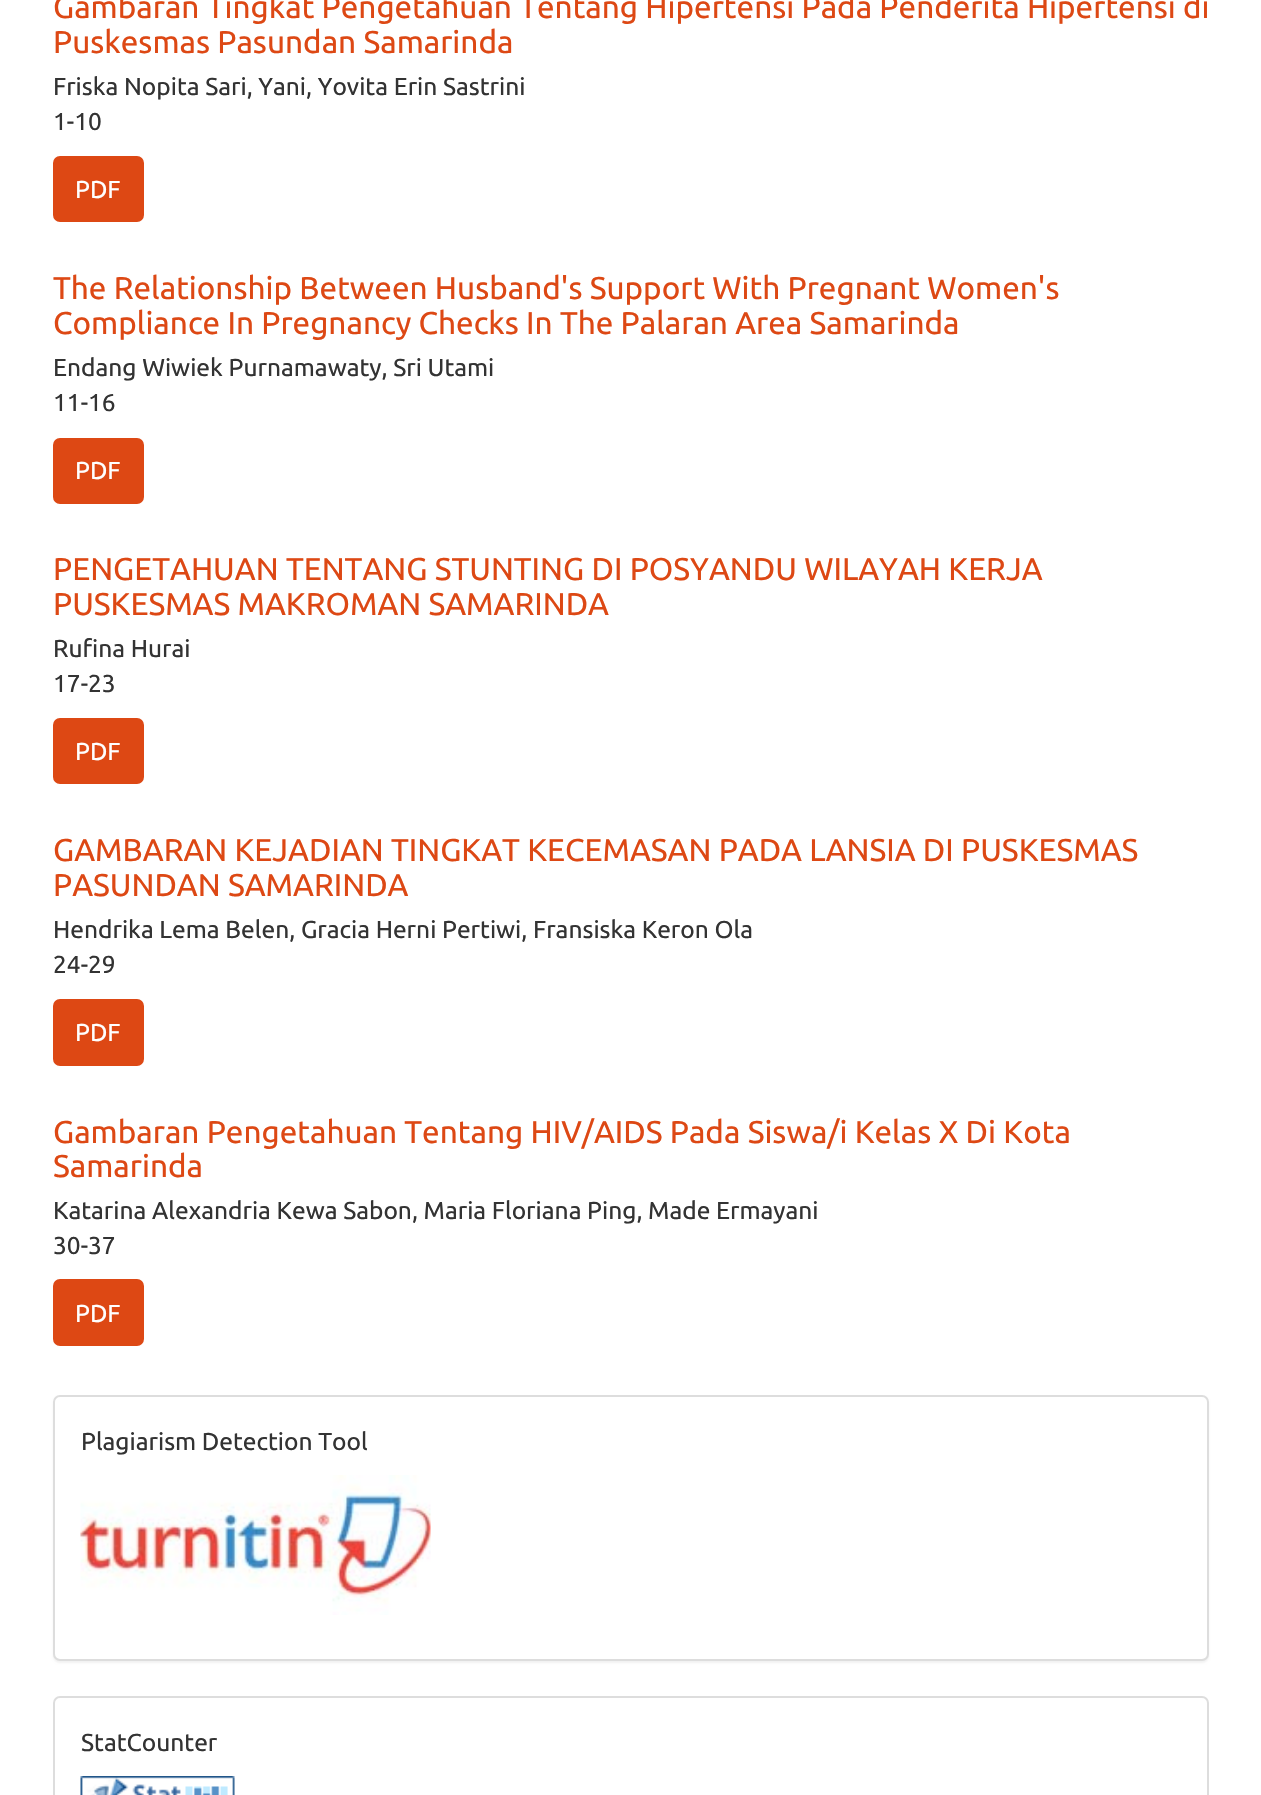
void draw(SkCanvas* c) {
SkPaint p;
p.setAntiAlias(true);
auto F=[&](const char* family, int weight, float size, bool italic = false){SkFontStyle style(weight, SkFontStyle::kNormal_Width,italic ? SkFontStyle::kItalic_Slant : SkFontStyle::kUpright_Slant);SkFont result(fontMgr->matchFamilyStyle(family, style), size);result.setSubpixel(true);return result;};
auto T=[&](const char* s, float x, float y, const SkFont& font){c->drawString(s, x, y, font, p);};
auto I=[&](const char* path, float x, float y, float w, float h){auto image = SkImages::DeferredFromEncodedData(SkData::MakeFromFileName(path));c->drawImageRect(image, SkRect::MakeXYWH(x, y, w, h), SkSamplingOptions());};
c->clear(0xffffffff);
auto f1 = F("Ubuntu",400,31.5);
p.setColor(0xffdd4814);
T("Gambaran Tingkat Pengetahuan Tentang Hipertensi Pada Penderita Hipertensi di",53,18,f1);
T("Puskesmas Pasundan Samarinda",53,53,f1);
auto f2 = F("Ubuntu",400,24.5);
p.setColor(0xff333333);
T("Friska Nopita Sari, Yani, Yovita Erin Sastrini",53,95,f2);
T("1-10",53,130,f2);
p.setColor(0xffdd4814);
c->drawRoundRect(SkRect::MakeXYWH(54,157,89,64),6,6,p);
p.setStroke(true);
p.setStrokeWidth(2);
c->drawRoundRect(SkRect::MakeXYWH(54,157,89,64),6,6,p);
p.setStroke(false);
p.setColor(0xffffffff);
T("PDF",75,198,f2);
p.setColor(0xffdd4814);
T("The Relationship Between Husband's Support With Pregnant Women's",53,299,f1);
T("Compliance In Pregnancy Checks In The Palaran Area Samarinda",53,334,f1);
p.setColor(0xff333333);
T("Endang Wiwiek Purnamawaty, Sri Utami",53,376,f2);
T("11-16",53,411,f2);
p.setColor(0xffdd4814);
c->drawRoundRect(SkRect::MakeXYWH(54,439,89,64),6,6,p);
p.setStroke(true);
c->drawRoundRect(SkRect::MakeXYWH(54,439,89,64),6,6,p);
p.setStroke(false);
p.setColor(0xffffffff);
T("PDF",75,479,f2);
p.setColor(0xffdd4814);
T("PENGETAHUAN TENTANG STUNTING DI POSYANDU WILAYAH KERJA",53,580,f1);
T("PUSKESMAS MAKROMAN SAMARINDA",53,615,f1);
p.setColor(0xff333333);
T("Rufina Hurai",53,657,f2);
T("17-23",53,692,f2);
p.setColor(0xffdd4814);
c->drawRoundRect(SkRect::MakeXYWH(54,719,89,64),6,6,p);
p.setStroke(true);
c->drawRoundRect(SkRect::MakeXYWH(54,719,89,64),6,6,p);
p.setStroke(false);
p.setColor(0xffffffff);
T("PDF",75,760,f2);
p.setColor(0xffdd4814);
T("GAMBARAN KEJADIAN TINGKAT KECEMASAN PADA LANSIA DI PUSKESMAS",53,861,f1);
T("PASUNDAN SAMARINDA",53,896,f1);
p.setColor(0xff333333);
T("Hendrika Lema Belen, Gracia Herni Pertiwi, Fransiska Keron Ola",53,938,f2);
T("24-29",53,973,f2);
p.setColor(0xffdd4814);
c->drawRoundRect(SkRect::MakeXYWH(54,1000,89,65),6,6,p);
p.setStroke(true);
c->drawRoundRect(SkRect::MakeXYWH(54,1000,89,65),6,6,p);
p.setStroke(false);
p.setColor(0xffffffff);
T("PDF",75,1041,f2);
p.setColor(0xffdd4814);
T("Gambaran Pengetahuan Tentang HIV/AIDS Pada Siswa/i Kelas X Di Kota",53,1143,f1);
T("Samarinda",53,1177,f1);
p.setColor(0xff333333);
T("Katarina Alexandria Kewa Sabon, Maria Floriana Ping, Made Ermayani",53,1219,f2);
T("30-37",53,1254,f2);
p.setColor(0xffdd4814);
c->drawRoundRect(SkRect::MakeXYWH(54,1280,89,65),6,6,p);
p.setStroke(true);
c->drawRoundRect(SkRect::MakeXYWH(54,1280,89,65),6,6,p);
p.setStroke(false);
p.setColor(0xffffffff);
T("PDF",75,1322,f2);
p.setColor(0x0d000000);
p.setMaskFilter(SkMaskFilter::MakeBlur(kNormal_SkBlurStyle, 1));
c->drawRoundRect(SkRect::MakeXYWH(53,1397,1156,266),7,7,p);
p.setMaskFilter(nullptr);
p.setColor(0xffffffff);
c->drawRoundRect(SkRect::MakeXYWH(54,1396,1154,264),6,6,p);
p.setStroke(true);
p.setColor(0xffdddddd);
c->drawRoundRect(SkRect::MakeXYWH(54,1396,1154,264),6,6,p);
p.setStroke(false);
p.setColor(0xff333333);
T("Plagiarism Detection Tool",81,1450,f2);
I("1.png",80,1475,351,140);
p.setStroke(true);
p.setColor(0xffdddddd);
c->drawRoundRect(SkRect::MakeXYWH(54,1697,1154,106),6,6,p);
p.setStroke(false);
p.setColor(0xff333333);
T("StatCounter",81,1751,f2);
I("2.png",80,1776,155,19);
}
